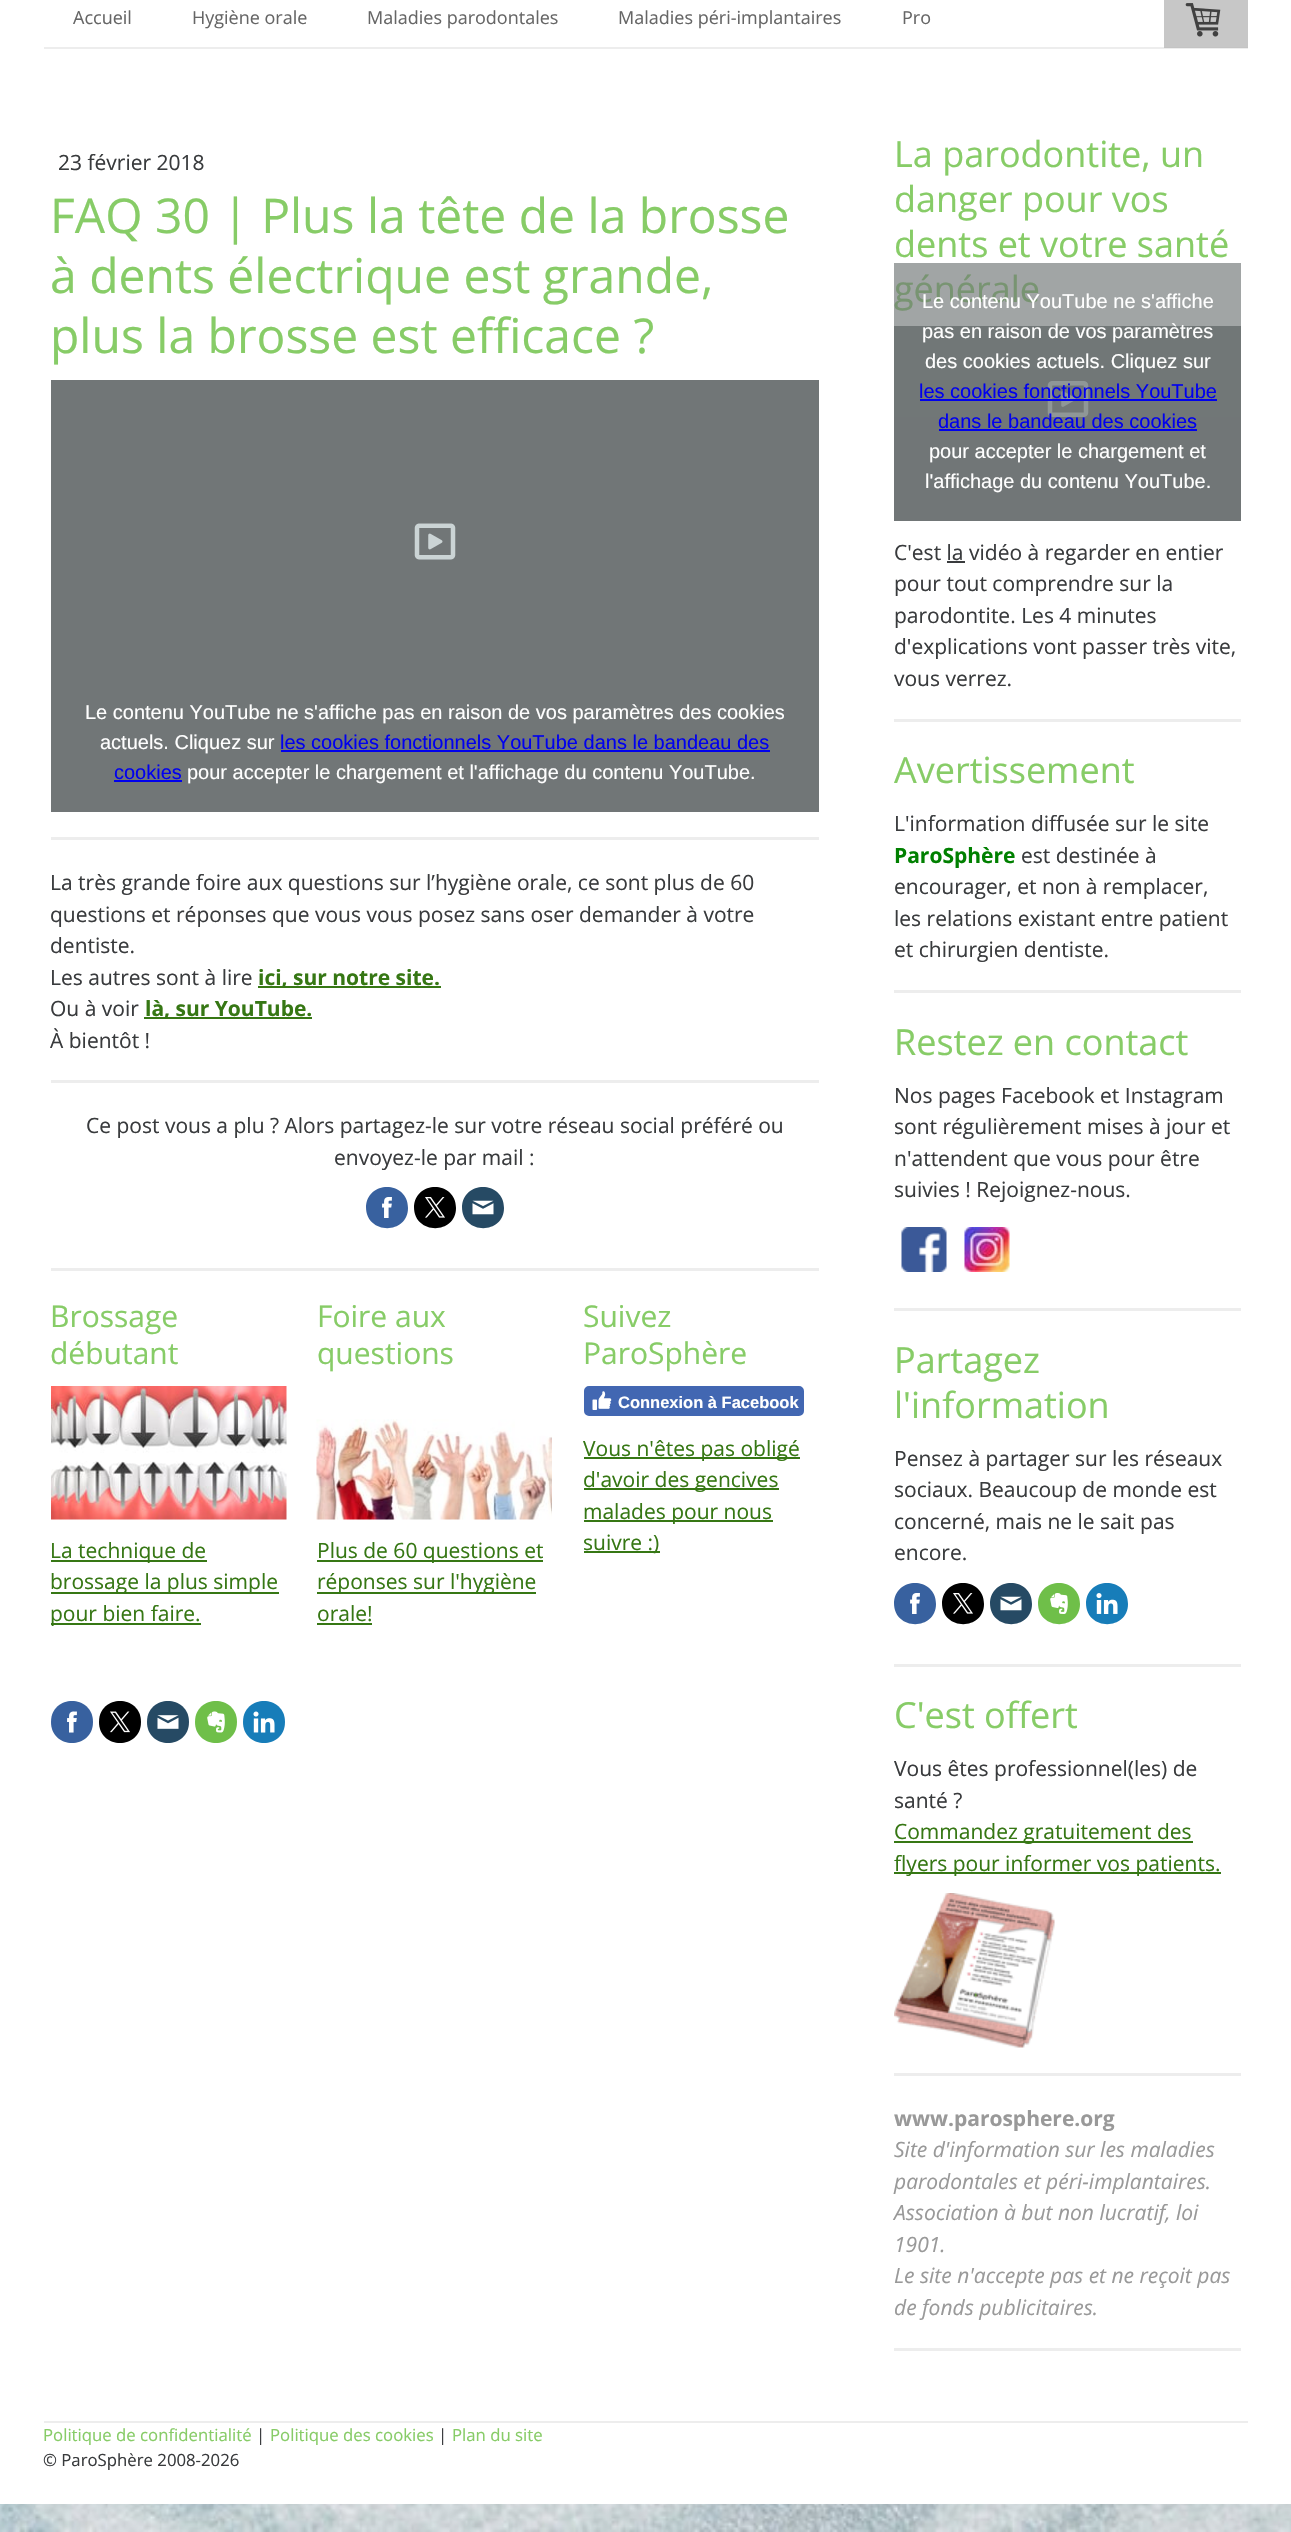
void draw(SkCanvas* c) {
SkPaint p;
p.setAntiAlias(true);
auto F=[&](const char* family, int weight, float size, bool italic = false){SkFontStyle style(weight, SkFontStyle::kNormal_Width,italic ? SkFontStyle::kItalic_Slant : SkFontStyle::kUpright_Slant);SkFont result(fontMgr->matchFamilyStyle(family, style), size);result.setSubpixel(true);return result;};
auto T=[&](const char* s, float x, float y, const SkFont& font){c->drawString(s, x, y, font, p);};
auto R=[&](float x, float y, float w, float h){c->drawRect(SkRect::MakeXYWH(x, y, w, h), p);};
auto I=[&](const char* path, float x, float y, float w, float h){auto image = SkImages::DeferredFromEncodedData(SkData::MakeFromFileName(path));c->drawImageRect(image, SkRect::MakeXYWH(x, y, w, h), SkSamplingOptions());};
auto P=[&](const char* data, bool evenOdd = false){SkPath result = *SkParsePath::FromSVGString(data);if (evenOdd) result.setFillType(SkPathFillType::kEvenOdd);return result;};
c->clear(0xffffffff);
p.setColor(0xffededed);
R(44,47,1204,2);
auto f1 = F("Open Sans",400,18);
p.setColor(0xff666666);
T("Accueil",73,24,f1);
T("Hygiène orale",192,24,f1);
T("Maladies parodontales",367,24,f1);
T("Maladies péri-implantaires",618,24,f1);
T("Pro",902,24,f1);
p.setColor(0xbfb4b4b4);
R(1164,0,84,48);
I("1.png",1185,3,36,34);
auto f2 = F("Open Sans",400,21);
p.setColor(0xff393b3d);
T("23 février 2018",58,170,f2);
auto f3 = F("Open Sans",400,48);
p.setColor(0xff87cc67);
T("FAQ 30 | Plus la tête de la brosse",50,233,f3);
T("à dents électrique est grande,",50,293,f3);
T("plus la brosse est efficace ?",50,353,f3);
p.setColor(0xff717677);
R(51,380,768,432);
I("2.png",414,523,42,37);
auto f4 = F("Liberation Sans",400,20);
p.setColor(0xffffffff);
T("Le contenu YouTube ne s'affiche pas en raison de vos paramètres des cookies",85,719,f4);
T("actuels. Cliquez sur",100,749,f4);
p.setColor(0xff0000ee);
T("les cookies fonctionnels YouTube dans le bandeau des",280,749,f4);
R(281,750,489,2);
T("cookies",114,779,f4);
R(114,780,68,2);
p.setColor(0xffffffff);
T("pour accepter le chargement et l'affichage du contenu YouTube.",187,779,f4);
p.setColor(0xffededed);
R(51,837,768,3);
p.setColor(0xff393b3d);
T("La très grande foire aux questions sur l’hygiène orale, ce sont plus de 60",50,890,f2);
T("questions et réponses que vous vous posez sans oser demander à votre",50,922,f2);
T("dentiste.",50,953,f2);
T("Les autres sont à lire",50,985,f2);
p.setColor(0xff367714);
R(258,986,183,2);
auto f5 = F("Open Sans",700,21);
T("ici, sur notre site.",258,985,f5);
p.setColor(0xff393b3d);
T("Ou à voir",50,1016,f2);
p.setColor(0xff367714);
R(144,1017,168,2);
T("là, sur YouTube.",145,1016,f5);
p.setColor(0xff393b3d);
T("À bientôt !",50,1048,f2);
p.setColor(0xffededed);
R(51,1080,768,3);
p.setColor(0xff393b3d);
T("Ce post vous a plu ? Alors partagez-le sur votre réseau social préféré ou",86,1133,f2);
T("envoyez-le par mail :",334,1165,f2);
p.setColor(0xff38619f);
c->drawPath(P("M366 1207c0 28 42 28 42 1c0-28-42-28-42 0z"),p);
I("3.png",382,1197,10,21);
p.setColor(0xff000000);
c->drawPath(P("M414 1207c0 28 42 28 42 1c0-28-42-28-42 0z"),p);
I("4.png",425,1197,20,21);
p.setColor(0xff264a64);
c->drawPath(P("M462 1207c0 28 42 28 42 1c0-28-42-28-42 0z"),p);
I("5.png",472,1200,22,15);
p.setColor(0xffededed);
R(51,1268,768,3);
auto f6 = F("Open Sans",400,30);
p.setColor(0xff87cc67);
T("Brossage",50,1327,f6);
T("débutant",50,1364,f6);
I("6.png",51,1386,236,134);
p.setColor(0xff367714);
R(51,1560,156,2);
T("La technique de",50,1558,f2);
R(51,1592,228,2);
T("brossage la plus simple",50,1589,f2);
R(51,1623,150,2);
T("pour bien faire.",50,1621,f2);
p.setColor(0xff87cc67);
T("Foire aux",317,1327,f6);
T("questions",317,1364,f6);
I("7.png",316,1419,236,101);
p.setColor(0xff367714);
R(317,1560,226,2);
T("Plus de 60 questions et",317,1558,f2);
R(317,1592,219,2);
T("réponses sur l'hygiène",317,1589,f2);
T("orale!",317,1621,f2);
R(317,1623,55,2);
p.setColor(0xff87cc67);
T("Suivez",583,1327,f6);
T("ParoSphère",583,1364,f6);
p.setColor(0xff4267b2);
c->drawRoundRect(SkRect::MakeXYWH(585,1387,218,28),4,4,p);
p.setStroke(true);
p.setStrokeWidth(2);
c->drawRoundRect(SkRect::MakeXYWH(585,1387,218,28),4,4,p);
I("8.png",592,1391,20,19);
auto f7 = F("Liberation Sans",700,16.5);
p.setStroke(false);
p.setColor(0xffffffff);
T("Connexion à Facebook",618,1408,f7);
p.setColor(0xff367714);
R(584,1457,216,2);
T("Vous n'êtes pas obligé",583,1456,f2);
R(584,1488,195,2);
T("d'avoir des gencives",583,1487,f2);
R(584,1520,189,2);
T("malades pour nous",583,1519,f2);
R(584,1551,76,2);
T("suivre :)",583,1550,f2);
p.setColor(0xff38619f);
c->drawPath(P("M51 1722c0 28 42 28 42 0c0-28-42-28-42 0z"),p);
I("9.png",67,1711,10,22);
p.setColor(0xff000000);
c->drawPath(P("M99 1722c0 28 42 28 42 0c0-28-42-28-42 0z"),p);
I("10.png",110,1711,20,22);
p.setColor(0xff264a64);
c->drawPath(P("M147 1722c0 28 42 28 42 0c0-28-42-28-42 0z"),p);
I("11.png",157,1715,22,14);
p.setColor(0xff6fbf49);
c->drawPath(P("M195 1722c0 28 42 28 42 0c0-28-42-28-42 0z"),p);
I("12.png",207,1711,18,22);
p.setColor(0xff177db9);
c->drawPath(P("M243 1722c0 28 42 28 42 0c0-28-42-28-42 0z"),p);
I("13.png",253,1711,22,22);
auto f8 = F("Open Sans",400,36);
p.setColor(0xff87cc67);
T("La parodontite, un",894,167,f8);
T("danger pour vos",894,212,f8);
T("dents et votre santé",894,257,f8);
T("générale",894,302,f8);
p.setColor(0xff717677);
R(894,326,347,195);
I("14.png",1047,381,42,36);
p.setColor(0xa8717677);
R(894,263,347,154);
p.setColor(0xffffffff);
T("Le contenu YouTube ne s'affiche",922,308,f4);
T("pas en raison de vos paramètres",922,338,f4);
T("des cookies actuels. Cliquez sur",925,368,f4);
p.setColor(0xff0000ee);
T("les cookies fonctionnels YouTube",919,398,f4);
R(920,399,297,2);
T("dans le bandeau des cookies",938,428,f4);
R(939,429,258,2);
p.setColor(0xffffffff);
T("pour accepter le chargement et",929,458,f4);
T("l'affichage du contenu YouTube.",925,488,f4);
p.setColor(0xff393b3d);
T("C'est la vidéo à regarder en entier",894,560,f2);
R(947,561,18,2);
T("pour tout comprendre sur la",894,591,f2);
T("parodontite. Les 4 minutes",894,623,f2);
T("d'explications vont passer très vite,",894,654,f2);
T("vous verrez.",894,686,f2);
p.setColor(0xffededed);
R(894,719,347,3);
p.setColor(0xff87cc67);
T("Avertissement",894,783,f8);
p.setColor(0xff393b3d);
T("L'information diffusée sur le site",894,831,f2);
p.setColor(0xff008000);
T("ParoSphère",894,863,f5);
p.setColor(0xff393b3d);
T("est destinée à",1021,863,f2);
T("encourager, et non à remplacer,",894,894,f2);
T("les relations existant entre patient",894,926,f2);
T("et chirurgien dentiste.",894,957,f2);
p.setColor(0xffededed);
R(894,990,347,3);
p.setColor(0xff87cc67);
T("Restez en contact",894,1055,f8);
p.setColor(0xff393b3d);
T("Nos pages Facebook et Instagram",894,1103,f2);
T("sont régulièrement mises à jour et",894,1134,f2);
T("n'attendent que vous pour être",894,1166,f2);
T("suivies ! Rejoignez-nous.",894,1197,f2);
I("15.png",901,1227,46,45);
I("16.png",964,1227,46,45);
p.setColor(0xffededed);
R(894,1308,347,3);
p.setColor(0xff87cc67);
T("Partagez",894,1373,f8);
T("l'information",894,1418,f8);
p.setColor(0xff393b3d);
T("Pensez à partager sur les réseaux",894,1466,f2);
T("sociaux. Beaucoup de monde est",894,1497,f2);
T("concerné, mais ne le sait pas",894,1529,f2);
T("encore.",894,1560,f2);
p.setColor(0xff38619f);
c->drawPath(P("M894 1603c0 28 42 28 42 1c0-28-42-28-42 0z"),p);
I("3.png",910,1593,10,21);
p.setColor(0xff000000);
c->drawPath(P("M942 1603c0 28 42 28 42 1c0-28-42-28-42 0z"),p);
I("4.png",953,1593,20,21);
p.setColor(0xff264a64);
c->drawPath(P("M990 1603c0 28 42 28 42 1c0-28-42-28-42 0z"),p);
I("5.png",1000,1596,22,15);
p.setColor(0xff6fbf49);
c->drawPath(P("M1038 1603c0 28 42 28 42 1c0-28-42-28-42 0z"),p);
I("17.png",1050,1593,18,21);
p.setColor(0xff177db9);
c->drawPath(P("M1086 1603c0 28 42 28 42 1c0-28-42-28-42 0z"),p);
I("18.png",1096,1593,22,21);
p.setColor(0xffededed);
R(894,1664,347,3);
p.setColor(0xff87cc67);
T("C'est offert",894,1728,f8);
p.setColor(0xff393b3d);
T("Vous êtes professionnel(les) de",894,1776,f2);
T("santé ?",894,1808,f2);
p.setColor(0xff367714);
R(894,1841,299,2);
T("Commandez gratuitement des",894,1839,f2);
R(894,1872,327,2);
T("flyers pour informer vos patients.",894,1871,f2);
I("19.png",894,1893,161,155);
p.setColor(0xffededed);
R(894,2073,347,3);
p.setColor(0xff999999);
T("www.parosphere.org",894,2126,f5);
auto f9 = F("Open Sans",400,21,true);
T("Site d'information sur les maladies",894,2157,f9);
T("parodontales et péri-implantaires.",894,2189,f9);
T("Association à but non lucratif, loi",894,2220,f9);
T("1901.",894,2252,f9);
T("Le site n'accepte pas et ne reçoit pas",894,2283,f9);
T("de fonds publicitaires.",894,2315,f9);
p.setColor(0xffededed);
R(894,2348,347,3);
R(44,2421,1204,2);
auto f10 = F("Open Sans",400,16.75);
p.setColor(0xff87cc67);
T("Politique de confidentialité",43,2441,f10);
p.setColor(0xff393b3d);
T("|",256,2441,f10);
p.setColor(0xff87cc67);
T("Politique des cookies",270,2441,f10);
p.setColor(0xff393b3d);
T("|",438,2441,f10);
p.setColor(0xff87cc67);
T("Plan du site",452,2441,f10);
p.setColor(0xff393b3d);
T("© ParoSphère 2008-2026",43,2466,f10);
I("20.png",0,2504,1291,28);
}
